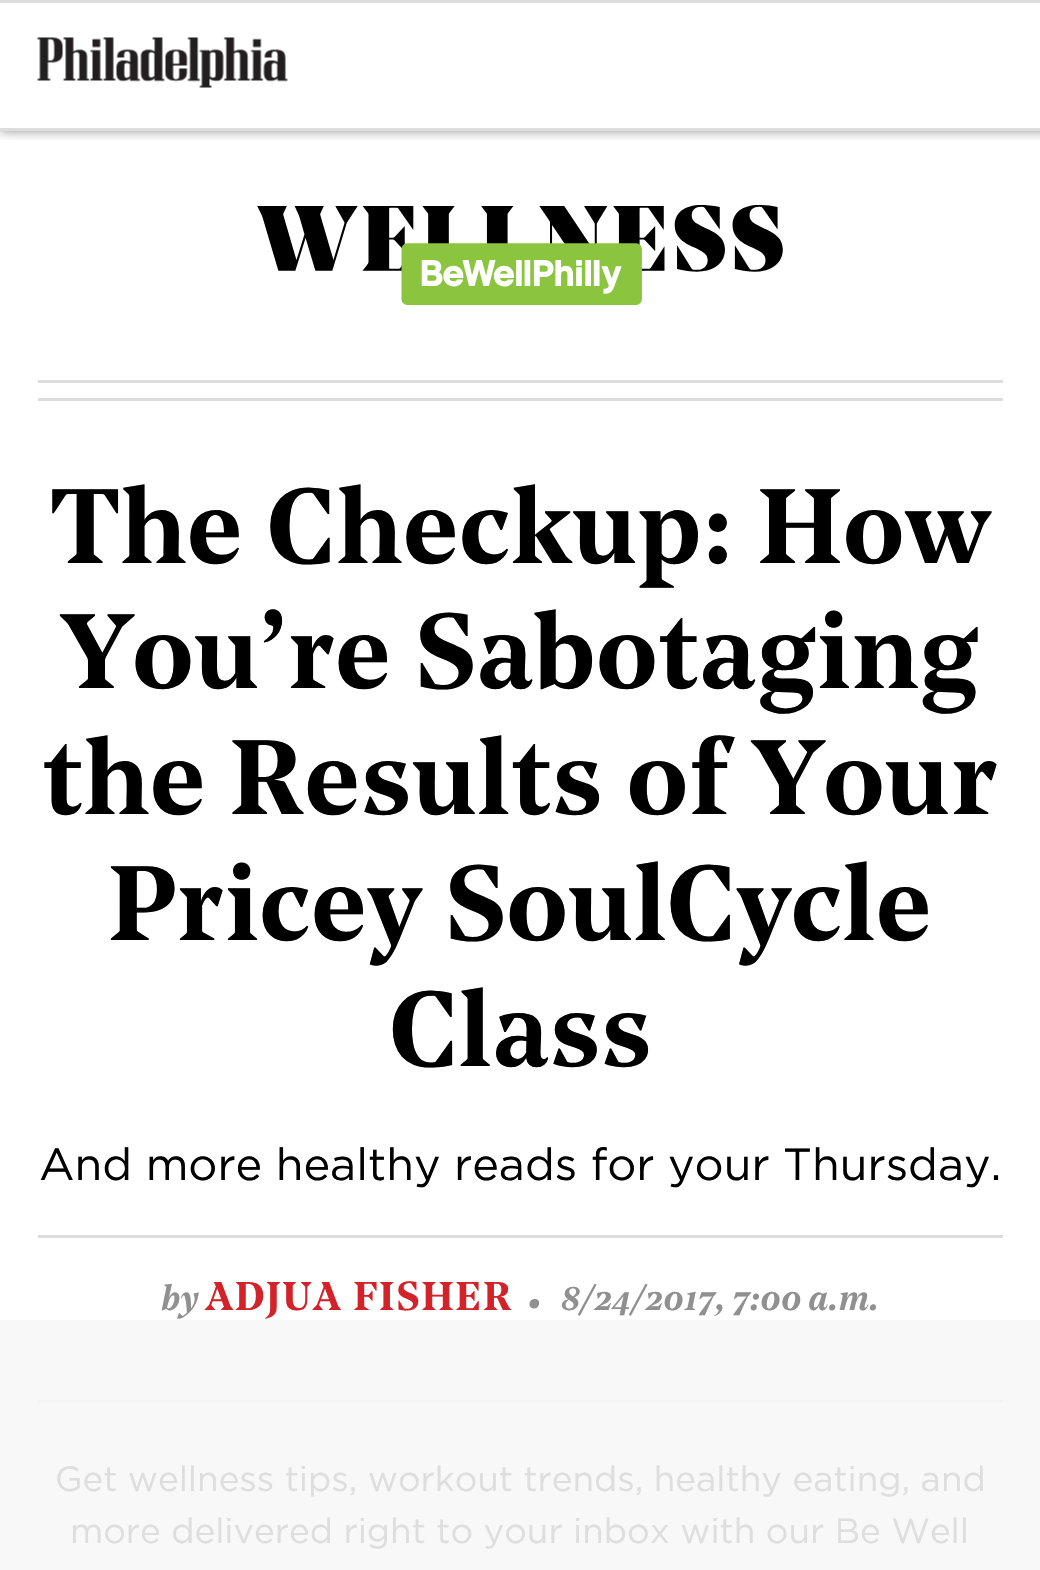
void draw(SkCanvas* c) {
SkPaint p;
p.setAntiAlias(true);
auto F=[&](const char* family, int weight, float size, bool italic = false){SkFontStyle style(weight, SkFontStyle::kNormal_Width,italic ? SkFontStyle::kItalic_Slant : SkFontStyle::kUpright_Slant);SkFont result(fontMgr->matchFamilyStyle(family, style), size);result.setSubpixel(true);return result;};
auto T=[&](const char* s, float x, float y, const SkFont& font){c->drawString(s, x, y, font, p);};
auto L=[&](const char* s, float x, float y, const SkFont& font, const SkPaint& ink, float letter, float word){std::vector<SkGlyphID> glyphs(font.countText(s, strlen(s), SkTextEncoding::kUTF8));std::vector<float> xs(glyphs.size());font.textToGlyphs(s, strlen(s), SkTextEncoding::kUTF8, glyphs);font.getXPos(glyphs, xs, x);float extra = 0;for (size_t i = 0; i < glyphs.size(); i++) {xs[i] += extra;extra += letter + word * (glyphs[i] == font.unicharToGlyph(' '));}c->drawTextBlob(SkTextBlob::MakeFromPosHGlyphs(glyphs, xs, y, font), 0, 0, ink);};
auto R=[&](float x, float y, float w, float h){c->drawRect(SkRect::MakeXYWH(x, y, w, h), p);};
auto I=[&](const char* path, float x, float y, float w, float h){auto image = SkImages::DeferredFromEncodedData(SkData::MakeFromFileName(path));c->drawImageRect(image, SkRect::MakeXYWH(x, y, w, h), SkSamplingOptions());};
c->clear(0xffffffff);
p.setColor(0xfff8f8f8);
R(0,1320,1040,250);
c->save();
c->clipRect(SkRect::MakeXYWH(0,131,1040,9));
p.setColor(0x80000000);
p.setMaskFilter(SkMaskFilter::MakeBlur(kNormal_SkBlurStyle, 6));
c->drawRect(SkRect::MakeXYWH(0,0,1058,130),p);
p.setMaskFilter(nullptr);
c->restore();
p.setColor(0xffdddddd);
R(0,0,1040,3);
R(0,128,1040,3);
I("1.png",37,37,251,51);
I("2.png",257,205,526,100);
R(38,380,965,3);
R(38,398,965,3);
auto f1 = F("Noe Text",600,105);
p.setColor(0xff000000);
T("The Checkup: How",50,563,f1);
T("You’re Sabotaging",61,688,f1);
T("the Results of Your",42,814,f1);
T("Pricey SoulCycle",108,940,f1);
T("Class",389,1066,f1);
auto f2 = F("Gotham",400,45);
T("And more healthy reads for your Thursday.",39,1180,f2);
p.setColor(0xffdddddd);
R(38,1235,965,3);
p.setColor(0xfff4f4f4);
R(38,1400,965,3);
auto f3 = F("Noe Text",600,35,true);
p.setColor(0xff909090);
T("by",161,1310,f3);
auto f4 = F("Noe Text",600,40);
p.setColor(0xffd2232a);
L("ADJUA FISHER",205,1310,f4,p,1.6,0);
auto f5 = F("Noe Text",600,55,true);
p.setColor(0xff909090);
T("·",526,1320,f5);
T("8/24/2017, 7:00 a.m.",561,1310,f3);
auto f6 = F("Gotham",400,35);
p.setColor(0xffdedede);
T("Get wellness tips, workout trends, healthy eating, and",55,1491,f6);
T("more delivered right to your inbox with our Be Well",70,1543,f6);
}
